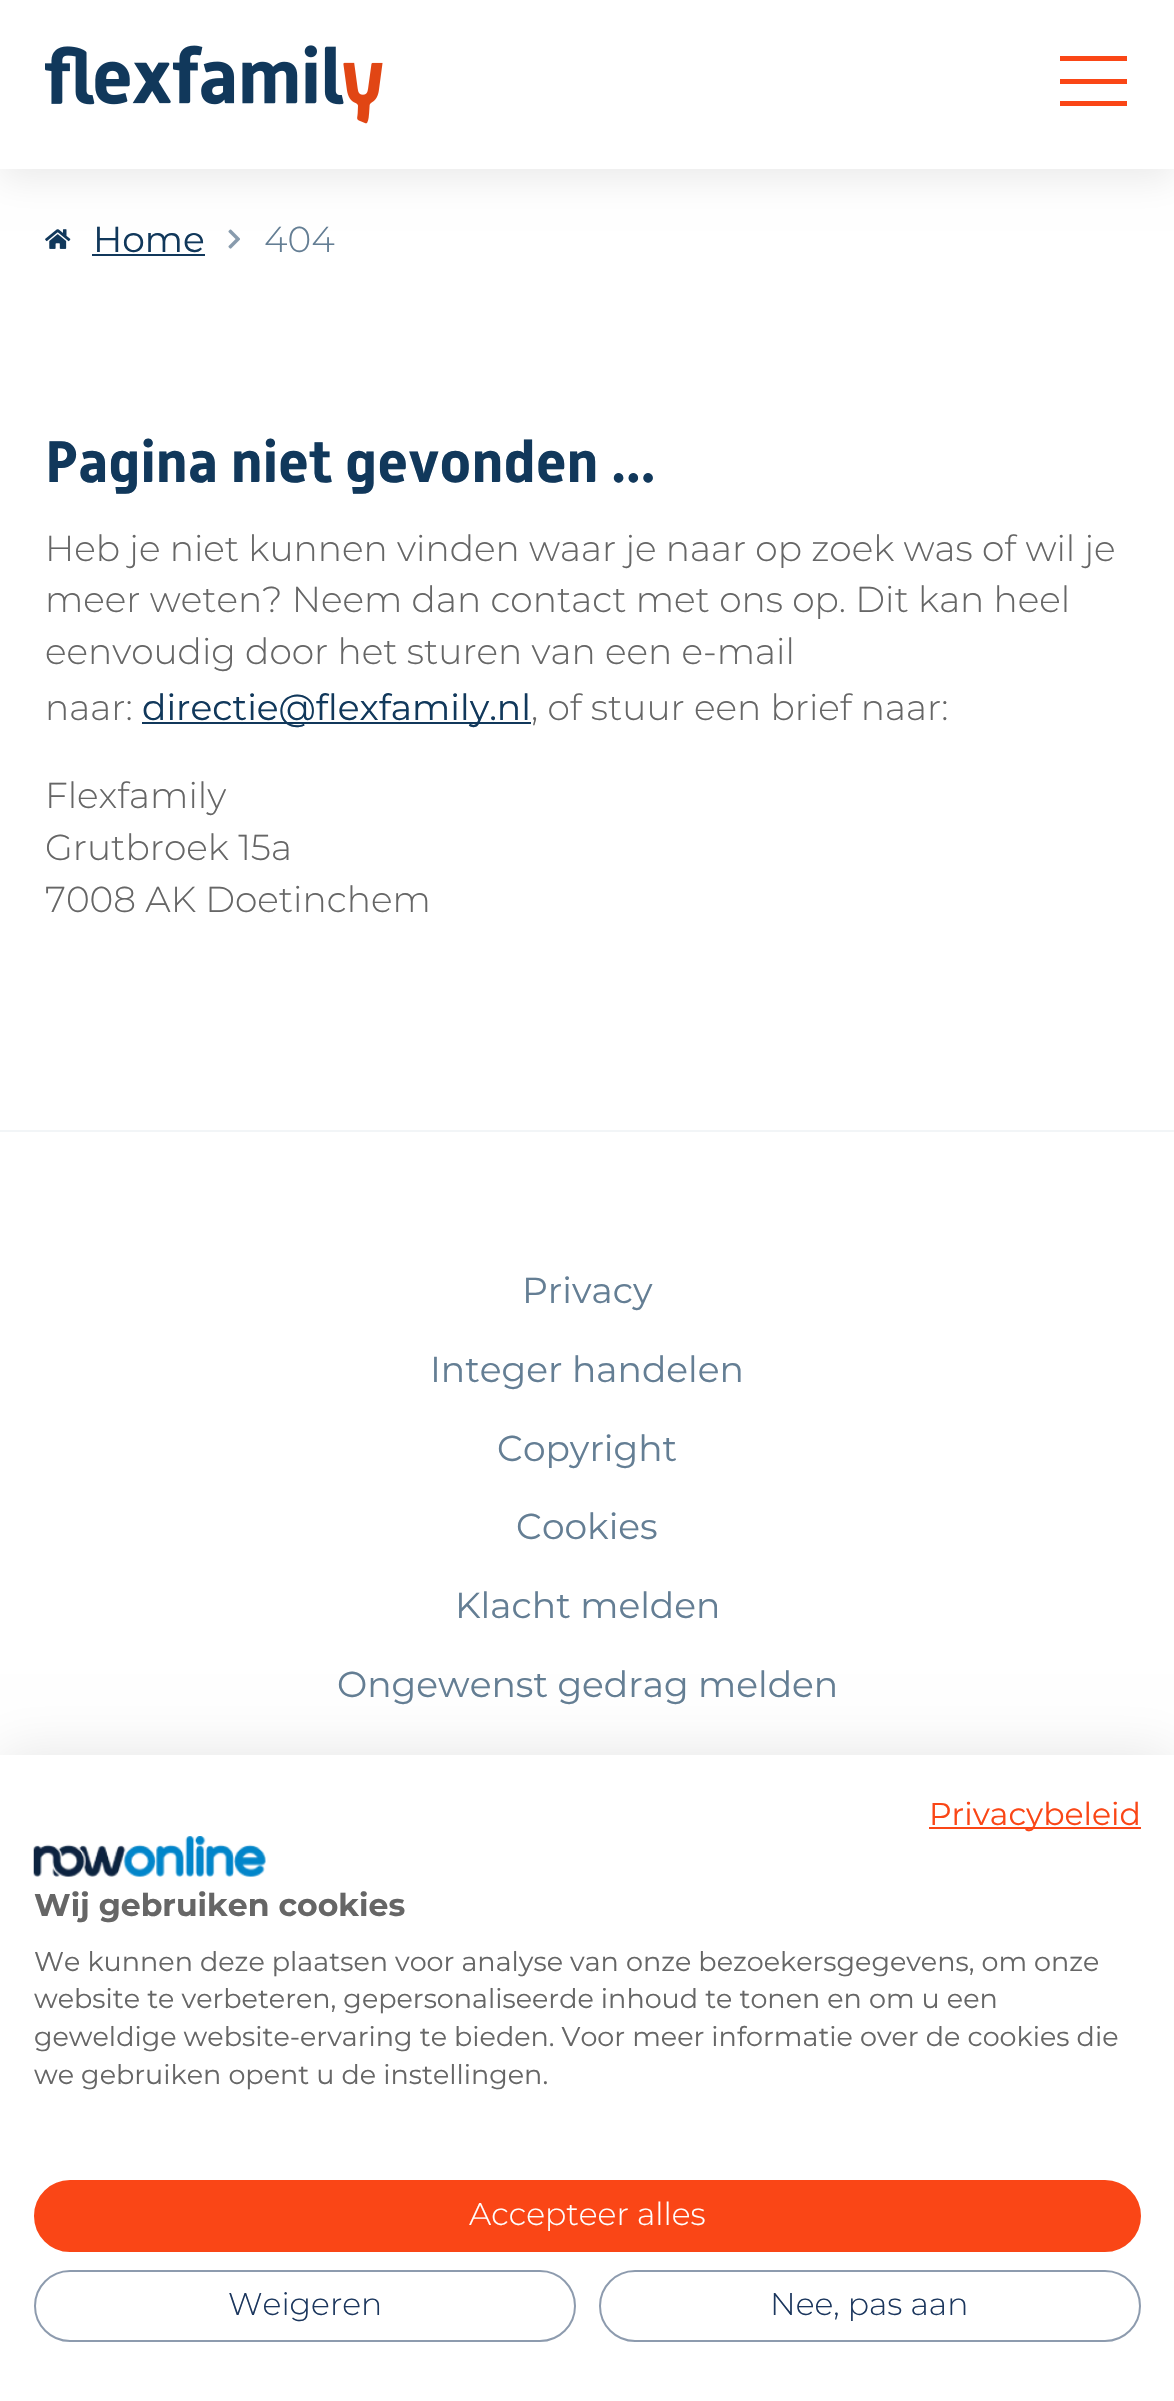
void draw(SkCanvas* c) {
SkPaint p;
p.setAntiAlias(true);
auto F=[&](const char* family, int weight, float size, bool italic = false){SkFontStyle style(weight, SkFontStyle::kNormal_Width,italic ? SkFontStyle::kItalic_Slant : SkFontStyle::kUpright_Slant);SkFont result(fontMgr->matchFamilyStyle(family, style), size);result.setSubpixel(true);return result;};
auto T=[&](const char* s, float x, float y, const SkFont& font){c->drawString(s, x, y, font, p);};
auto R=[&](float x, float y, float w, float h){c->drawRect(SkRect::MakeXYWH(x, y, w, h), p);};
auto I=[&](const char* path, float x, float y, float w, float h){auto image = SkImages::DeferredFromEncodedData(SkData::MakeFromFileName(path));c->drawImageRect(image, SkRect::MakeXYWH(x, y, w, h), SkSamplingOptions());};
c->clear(0xffffffff);
I("2.png",45,229,26,20);
I("3.png",228,229,12,20);
p.setColor(0x14000000);
p.setMaskFilter(SkMaskFilter::MakeBlur(kNormal_SkBlurStyle, 17));
c->drawRect(SkRect::MakeXYWH(0,11,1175,169),p);
p.setMaskFilter(nullptr);
p.setColor(0xffffffff);
R(0,0,1174,169);
I("1.png",45,45,338,79);
p.setColor(0xfffa4616);
R(1060,56,67,5);
R(1060,79,67,5);
R(1060,101,67,5);
auto f1 = F("Montserrat",400,36);
p.setColor(0xff11385b);
T("Home",93,252,f1);
R(92,254,113,2);
auto f2 = F("Montserrat",300,36);
p.setColor(0xff647e94);
T("404",264,252,f2);
auto f3 = F("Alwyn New",700,58.5);
p.setColor(0xff11385b);
T("Pagina niet gevonden ...",45,482,f3);
p.setColor(0xff666666);
T("Heb je niet kunnen vinden waar je naar op zoek was of wil je",45,561,f2);
T("meer weten? Neem dan contact met ons op. Dit kan heel",45,612,f2);
T("eenvoudig door het sturen van een e-mail",45,664,f2);
T("naar:",45,720,f2);
p.setColor(0xff11385b);
R(142,722,389,2);
T("directie@flexfamily.nl",142,720,f1);
p.setColor(0xff666666);
T(", of stuur een brief naar:",531,720,f2);
T("Flexfamily",45,808,f2);
T("Grutbroek 15a",45,860,f2);
T("7008 AK Doetinchem",45,912,f2);
p.setColor(0xfff2f5f7);
R(0,1130,1174,2);
p.setColor(0xff647e94);
T("Privacy",522,1303,f1);
T("Integer handelen",430,1382,f1);
T("Copyright",497,1461,f1);
T("Cookies",516,1539,f1);
T("Klacht melden",455,1618,f1);
T("Ongewenst gedrag melden",337,1697,f1);
p.setColor(0x1a000000);
p.setMaskFilter(SkMaskFilter::MakeBlur(kNormal_SkBlurStyle, 27));
c->drawRect(SkRect::MakeXYWH(0,1755,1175,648),p);
p.setMaskFilter(nullptr);
p.setColor(0xffffffff);
R(0,1755,1174,646);
p.setColor(0xfffa4616);
R(929,1827,212,2);
auto f4 = F("Montserrat",400,31.5);
T("Privacybeleid",929,1825,f4);
I("4.png",33,1836,233,41);
auto f5 = F("Montserrat",700,31.5);
p.setColor(0xff666666);
T("Wij gebruiken cookies",34,1916,f5);
auto f6 = F("Montserrat",400,27);
T("We kunnen deze plaatsen voor analyse van onze bezoekersgegevens, om onze",34,1971,f6);
T("website te verbeteren, gepersonaliseerde inhoud te tonen en om u een",34,2008,f6);
T("geweldige website-ervaring te bieden. Voor meer informatie over de cookies die",34,2046,f6);
T("we gebruiken opent u de instellingen.",34,2084,f6);
p.setColor(0xfffa4616);
c->drawRoundRect(SkRect::MakeXYWH(35,2181,1105,70),35,35,p);
p.setStroke(true);
p.setStrokeWidth(2);
c->drawRoundRect(SkRect::MakeXYWH(35,2181,1105,70),35,35,p);
auto f7 = F("Montserrat",300,31.5);
p.setStroke(false);
p.setColor(0xffffffff);
T("Accepteer alles",469,2225,f7);
p.setStroke(true);
p.setColor(0xff8d9bae);
c->drawRoundRect(SkRect::MakeXYWH(35,2271,540,70),35,35,p);
p.setStroke(false);
p.setColor(0xff1b365d);
T("Weigeren",228,2315,f7);
p.setStroke(true);
p.setColor(0xff8d9bae);
c->drawRoundRect(SkRect::MakeXYWH(600,2271,540,70),35,35,p);
p.setStroke(false);
p.setColor(0xff1b365d);
T("Nee, pas aan",770,2315,f7);
}
